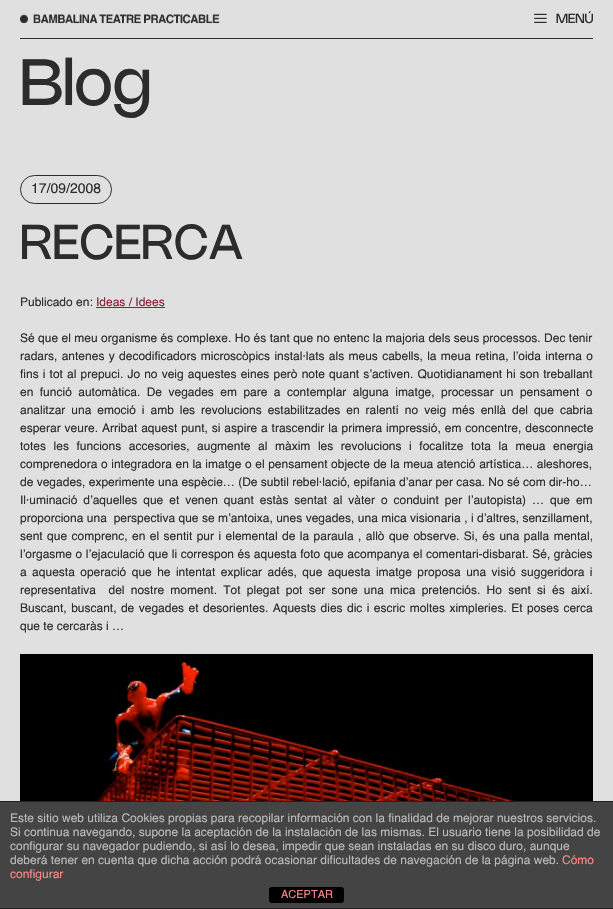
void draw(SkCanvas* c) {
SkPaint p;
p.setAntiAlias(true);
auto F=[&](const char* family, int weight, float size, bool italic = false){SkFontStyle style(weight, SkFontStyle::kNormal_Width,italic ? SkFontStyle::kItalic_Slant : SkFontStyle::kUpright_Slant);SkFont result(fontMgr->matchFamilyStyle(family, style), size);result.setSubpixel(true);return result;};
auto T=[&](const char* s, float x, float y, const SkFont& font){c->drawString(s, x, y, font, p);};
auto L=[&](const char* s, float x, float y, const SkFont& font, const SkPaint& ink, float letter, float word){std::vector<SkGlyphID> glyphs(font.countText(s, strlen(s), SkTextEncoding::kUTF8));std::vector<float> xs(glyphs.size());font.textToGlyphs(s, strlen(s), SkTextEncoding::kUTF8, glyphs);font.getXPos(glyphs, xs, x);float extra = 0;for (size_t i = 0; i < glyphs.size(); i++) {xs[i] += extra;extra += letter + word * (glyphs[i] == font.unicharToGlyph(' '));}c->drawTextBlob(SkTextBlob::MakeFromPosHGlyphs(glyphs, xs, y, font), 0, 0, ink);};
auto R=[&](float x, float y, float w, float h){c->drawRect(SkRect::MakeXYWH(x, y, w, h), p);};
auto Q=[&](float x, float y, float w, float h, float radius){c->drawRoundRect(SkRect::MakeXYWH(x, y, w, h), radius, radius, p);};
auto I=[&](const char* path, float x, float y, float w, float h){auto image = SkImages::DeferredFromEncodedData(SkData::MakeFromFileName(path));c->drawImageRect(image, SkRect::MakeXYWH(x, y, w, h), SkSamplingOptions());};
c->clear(0xffe0e0e0);
p.setColor(0xff2c2c2c);
R(20,38,573,1);
I("1.png",20,14,200,10);
I("2.png",534,13,13,10);
auto f1 = F("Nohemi",400,13);
T("MENÚ",556,23,f1);
auto f2 = F("Nohemi",400,64);
T("Blog",20,105,f2);
p.setStroke(true);
p.setStrokeWidth(1);
c->drawRoundRect(SkRect::MakeXYWH(20.5,175.5,91,28),14,14,p);
auto f3 = F("Helvetica",400,14);
p.setStroke(false);
T("17/09/2008",31,193,f3);
auto f4 = F("Nohemi",400,48);
T("RECERCA",20,259,f4);
auto f5 = F("Helvetica",400,12);
T("Publicado en:",20,306,f5);
p.setColor(0xff87223a);
T("Ideas / Idees",96,306,f5);
R(96,307,69,1);
p.setColor(0xff2c2c2c);
L("Sé que el meu organisme és complexe. Ho és tant que no entenc la majoria dels seus processos. Dec tenir",20,342,f5,p,0,.1);
L("radars, antenes y decodificadors microscòpics instal·lats als meus cabells, la meua retina, l’oida interna o",20,360,f5,p,0,1);
L("fins i tot al prepuci. Jo no veig aquestes eines però note quant s’activen. Quotidianament hi son treballant",20,378,f5,p,0,.8);
L("en funció automàtica. De vegades em pare a contemplar alguna imatge, processar un pensament o",20,396,f5,p,0,3.1);
L("analitzar una emoció i amb les revolucions estabilitzades en ralentí no veig més enllà del que cabria",20,414,f5,p,0,2.6);
L("esperar veure. Arribat aquest punt, si aspire a trascendir la primera impressió, em concentre, desconnecte",20,432,f5,p,0,.6);
L("totes les funcions accesories, augmente al màxim les revolucions i focalitze tota la meua energia",20,450,f5,p,0,4.25);
L("comprenedora o integradora en la imatge o el pensament objecte de la meua atenció artística… aleshores,",20,468,f5,p,0,.25);
T("de vegades, experimente una espècie… (De subtil rebel·lació, epifania d’anar per casa. No sé com dir-ho…",20,486,f5);
L("Il·uminació d’aquelles que et venen quant estàs sentat al vàter o conduint per l’autopista) … que em",20,504,f5,p,0,2.6);
L("proporciona una  perspectiva que se m’antoixa, unes vegades, una mica visionaria , i d’altres, senzillament,",20,522,f5,p,0,.1);
L("sent que comprenc, en el sentit pur i elemental de la paraula , allò que observe. Si, és una palla mental,",20,540,f5,p,0,1.1);
L("l’orgasme o l’ejaculació que li correspon és aquesta foto que acompanya el comentari-disbarat. Sé, gràcies",20,558,f5,p,0,.25);
L("a aquesta operació que he intentat explicar adés, que aquesta imatge proposa una visió suggeridora i",20,576,f5,p,0,2.1);
L("representativa  del nostre moment. Tot plegat pot ser sone una mica pretenciós. Ho sent si és així.",20,594,f5,p,0,2.9);
L("Buscant, buscant, de vegades et desorientes. Aquests dies dic i escric moltes ximpleries. Et poses cerca",20,612,f5,p,0,1.1);
T("que te cercaràs i …",20,630,f5);
I("3.png",20,654,573,147);
p.setColor(0xff444444);
R(0,802,613,106);
p.setColor(0xff222222);
R(0,801,613,1);
R(0,908,613,1);
p.setColor(0xffbbbbbb);
T("Este sitio web utiliza Cookies propias para recopilar información con la finalidad de mejorar nuestros servicios.",10,822,f5);
T("Si continua navegando, supone la aceptación de la instalación de las mismas. El usuario tiene la posibilidad de",10,836,f5);
T("configurar su navegador pudiendo, si así lo desea, impedir que sean instaladas en su disco duro, aunque",10,850,f5);
T("deberá tener en cuenta que dicha acción podrá ocasionar dificultades de navegación de la página web.",10,864,f5);
p.setColor(0xffff8888);
T("Cómo",562,864,f5);
T("configurar",10,878,f5);
p.setColor(0xff000000);
Q(269,887,75,16,3);
auto f6 = F("Helvetica",400,11);
p.setColor(0xffff8888);
T("ACEPTAR",281,898,f6);
}
